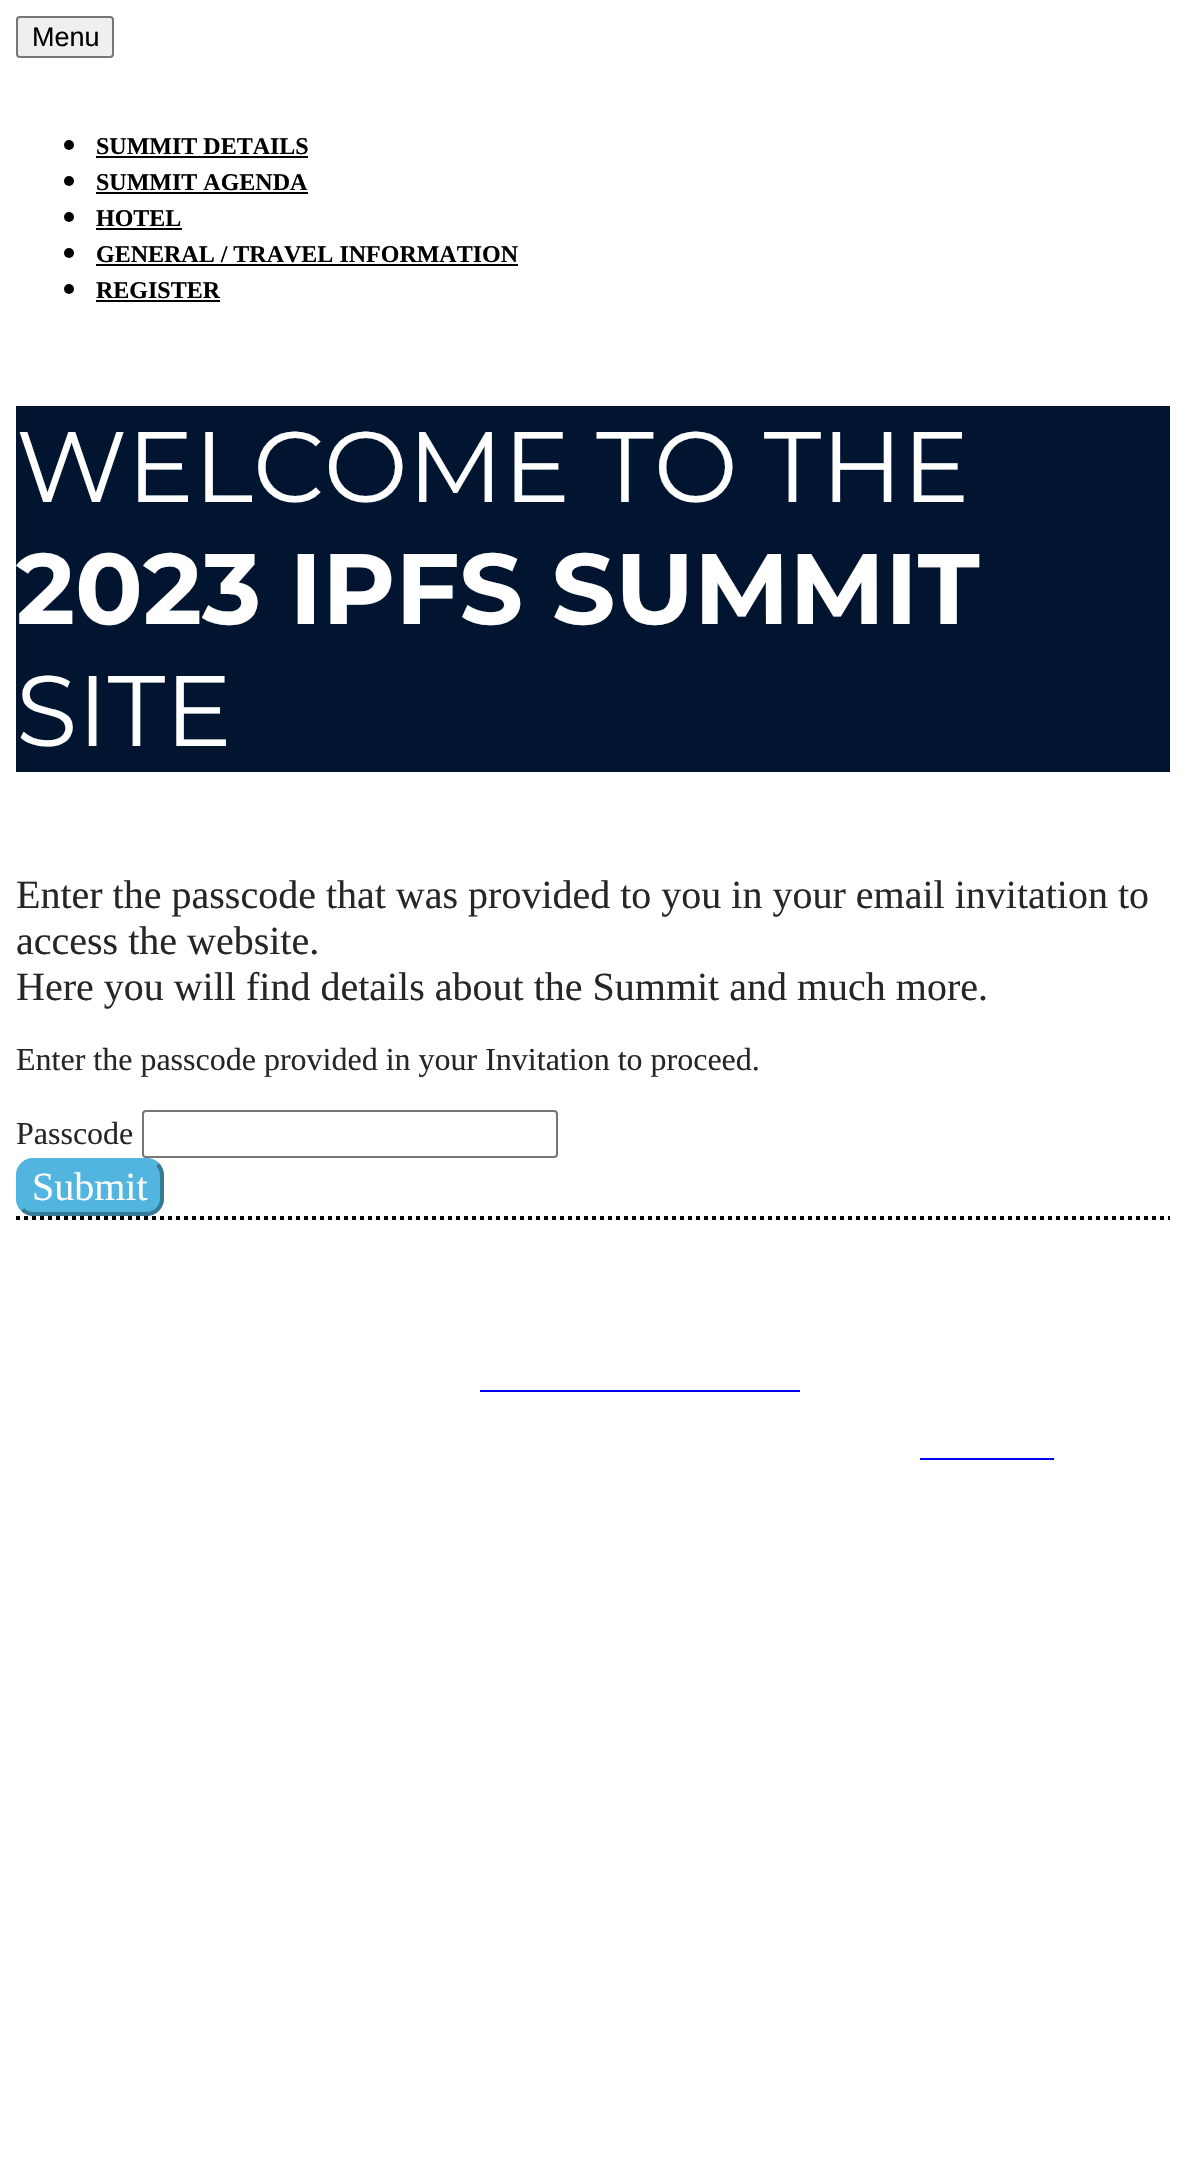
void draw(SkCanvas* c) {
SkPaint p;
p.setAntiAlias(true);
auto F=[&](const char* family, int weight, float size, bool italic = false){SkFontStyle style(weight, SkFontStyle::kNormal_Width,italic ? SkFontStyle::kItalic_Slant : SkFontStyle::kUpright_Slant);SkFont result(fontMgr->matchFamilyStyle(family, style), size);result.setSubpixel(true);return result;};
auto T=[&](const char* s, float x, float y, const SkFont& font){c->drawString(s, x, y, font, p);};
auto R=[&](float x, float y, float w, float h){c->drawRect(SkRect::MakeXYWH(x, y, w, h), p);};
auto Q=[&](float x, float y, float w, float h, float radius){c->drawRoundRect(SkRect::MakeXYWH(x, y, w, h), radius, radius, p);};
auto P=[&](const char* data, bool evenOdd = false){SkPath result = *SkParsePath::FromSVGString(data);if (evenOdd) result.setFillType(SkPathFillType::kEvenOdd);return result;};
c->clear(0xffffffff);
p.setColor(0xffefefef);
c->drawRoundRect(SkRect::MakeXYWH(17,17,96,40),3,3,p);
p.setStroke(true);
p.setStrokeWidth(2);
p.setColor(0xff767676);
c->drawRoundRect(SkRect::MakeXYWH(17,17,96,40),3,3,p);
auto f1 = F("Liberation Sans",400,27);
p.setStroke(false);
p.setColor(0xff000000);
T("Menu",32,46,f1);
c->drawCircle(69,145,5,p);
auto f2 = F("Liberation Serif",700,24);
T("SUMMIT DETAILS",96,154,f2);
R(96,156,212,2);
c->drawCircle(69,181,5,p);
T("SUMMIT AGENDA",96,190,f2);
R(96,192,212,2);
c->drawCircle(69,217,5,p);
T("HOTEL",96,226,f2);
R(96,228,86,2);
c->drawCircle(69,253,5,p);
T("GENERAL / TRAVEL INFORMATION",96,262,f2);
R(96,264,422,2);
c->drawCircle(69,289,5,p);
T("REGISTER",96,298,f2);
R(96,300,124,2);
p.setColor(0xff011531);
R(16,406,1154,366);
auto f3 = F("Montserrat",400,100);
p.setColor(0xffffffff);
T("WELCOME TO THE",16,502,f3);
auto f4 = F("Montserrat",700,100);
T("2023 IPFS SUMMIT",16,624,f4);
T("SITE",16,746,f3);
auto f5 = F("Liberation Serif",400,40);
p.setColor(0xff262626);
T("Enter the passcode that was provided to you in your email invitation to",16,908,f5);
T("access the website.",16,954,f5);
T("Here you will find details about the Summit and much more.",16,1000,f5);
auto f6 = F("Liberation Serif",400,32);
T("Enter the passcode provided in your Invitation to proceed.",16,1070,f6);
T("Passcode",16,1144,f6);
p.setStroke(true);
p.setColor(0xff767676);
c->drawRoundRect(SkRect::MakeXYWH(143,1111,414,46),3,3,p);
p.setStroke(false);
p.setColor(0xff51b5e0);
Q(16,1158,148,58,18);
p.setStroke(true);
p.setStrokeWidth(4);
p.setColor(0xff367995);
c->drawPath(P("M157.5 1164.5c3 3 4.5 7.5 4.5 11.5v22c0 4-1.5 8.5-4.5 11.5c-3 3-7.5 4.5-11.5 4.5h-112c-4 0-8.5-1.5-11.5-4.5"),p);
p.setColor(0xff51b5e0);
c->drawPath(P("M22.5 1209.5c-3-3-4.5-7.5-4.5-11.5v-22c0-4 1.5-8.5 4.5-11.5c3-3 7.5-4.5 11.5-4.5h112c4 0 8.5 1.5 11.5 4.5"),p);
p.setStroke(false);
p.setColor(0xffffffff);
T("Submit",32,1200,f5);
p.setStroke(true);
p.setColor(0xff000000);
p.setPathEffect(SkDashPathEffect::Make({{4,4}}, 0));
c->drawPath(P("M16 1218h1154"),p);
p.setPathEffect(nullptr);
p.setStroke(false);
p.setColor(0xff0000ee);
R(480,1390,320,2);
R(920,1458,134,2);
}
